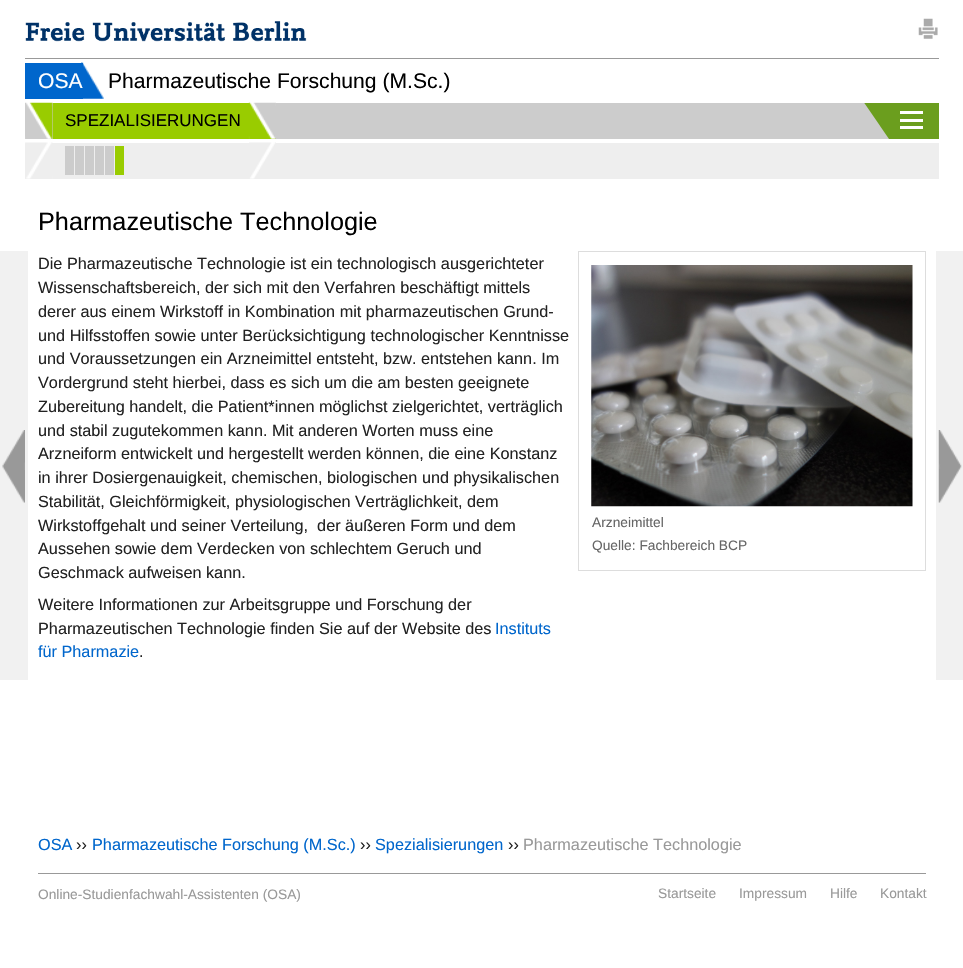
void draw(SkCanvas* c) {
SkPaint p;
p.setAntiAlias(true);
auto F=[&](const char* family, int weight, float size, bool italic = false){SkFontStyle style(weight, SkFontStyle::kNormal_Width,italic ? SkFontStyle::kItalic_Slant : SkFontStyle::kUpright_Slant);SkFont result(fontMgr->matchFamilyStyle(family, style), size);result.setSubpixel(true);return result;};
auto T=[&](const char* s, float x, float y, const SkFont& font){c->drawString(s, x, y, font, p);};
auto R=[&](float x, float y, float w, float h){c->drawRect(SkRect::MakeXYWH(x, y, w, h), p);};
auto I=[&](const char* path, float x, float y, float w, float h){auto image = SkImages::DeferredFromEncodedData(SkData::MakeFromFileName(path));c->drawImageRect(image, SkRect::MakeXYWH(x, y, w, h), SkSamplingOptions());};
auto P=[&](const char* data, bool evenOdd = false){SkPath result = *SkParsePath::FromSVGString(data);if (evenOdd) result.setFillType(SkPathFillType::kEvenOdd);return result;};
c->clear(0xffffffff);
I("1.png",25,21,282,21);
I("2.png",918,18,20,21);
p.setColor(0xff999999);
R(25,58,914,1);
I("3.png",81,62,23,37);
p.setColor(0xff0066cc);
R(25,63,58,36);
auto f1 = F("Liberation Sans",400,21.1);
p.setColor(0xffffffff);
T("OSA",38,88,f1);
p.setColor(0xff000000);
T("Pharmazeutische Forschung (M.Sc.)",108,88,f1);
p.setColor(0xffcccccc);
R(25,103,864,36);
I("4.png",25,102,28,37);
p.setColor(0xffeeeeee);
R(25,143,914,36);
I("5.png",25,142,28,37);
p.setColor(0xff99cc00);
R(53,103,223,36);
I("6.png",248,102,28,37);
auto f2 = F("Liberation Sans",400,17);
p.setColor(0xff000000);
T("SPEZIALISIERUNGEN",65,126,f2);
I("7.png",249,142,27,37);
p.setColor(0xffcccccc);
R(65,146,9,29);
R(75,146,9,29);
R(85,146,9,29);
R(95,146,9,29);
R(105,146,9,29);
p.setColor(0xff99cc00);
R(115,146,9,29);
p.setColor(0xff6b9e1e);
R(889,103,50,36);
c->save();
c->clipRect(SkRect::MakeXYWH(25,103,914,76));
c->drawPath(P("M889 102.5v36.5l-25-36.5z"),p);
c->restore();
p.setColor(0xffffffff);
R(900,111,23,3);
R(900,119,23,3);
R(900,126,23,3);
p.setColor(0xfff1f1f1);
R(0,251,28,429);
I("8.png",2,430,23,73);
R(936,251,27,429);
I("9.png",938,430,24,73);
auto f3 = F("Liberation Sans",400,25.25);
p.setColor(0xff000000);
T("Pharmazeutische Technologie",38,230,f3);
auto f4 = F("Liberation Sans",400,16.25);
p.setColor(0xff222222);
T("Die Pharmazeutische Technologie ist ein technologisch ausgerichteter",38,269,f4);
T("Wissenschaftsbereich, der sich mit den Verfahren beschäftigt mittels",38,293,f4);
T("derer aus einem Wirkstoff in Kombination mit pharmazeutischen Grund-",38,317,f4);
T("und Hilfsstoffen sowie unter Berücksichtigung technologischer Kenntnisse",38,341,f4);
T("und Voraussetzungen ein Arzneimittel entsteht, bzw. entstehen kann. Im",38,364,f4);
T("Vordergrund steht hierbei, dass es sich um die am besten geeignete",38,388,f4);
T("Zubereitung handelt, die Patient*innen möglichst zielgerichtet, verträglich",38,412,f4);
T("und stabil zugutekommen kann. Mit anderen Worten muss eine",38,436,f4);
T("Arzneiform entwickelt und hergestellt werden können, die eine Konstanz",38,459,f4);
T("in ihrer Dosiergenauigkeit, chemischen, biologischen und physikalischen",38,483,f4);
T("Stabilität, Gleichförmigkeit, physiologischen Verträglichkeit, dem",38,507,f4);
T("Wirkstoffgehalt und seiner Verteilung,  der äußeren Form und dem",38,531,f4);
T("Aussehen sowie dem Verdecken von schlechtem Geruch und",38,554,f4);
T("Geschmack aufweisen kann.",38,578,f4);
T("Weitere Informationen zur Arbeitsgruppe und Forschung der",38,610,f4);
T("Pharmazeutischen Technologie finden Sie auf der Website des",38,634,f4);
p.setColor(0xff0066cc);
T("Instituts",495,634,f4);
T("für Pharmazie",38,657,f4);
p.setColor(0xff222222);
T(".",139,657,f4);
p.setStroke(true);
p.setStrokeWidth(1);
p.setColor(0xffdddddd);
c->drawRect(SkRect::MakeXYWH(578.5,251.5,347,319),p);
I("10.png",591,265,322,242);
auto f5 = F("Liberation Sans",400,13.75);
p.setStroke(false);
p.setColor(0xff666666);
T("Arzneimittel",592,527,f5);
T("Quelle: Fachbereich BCP",592,550,f5);
p.setColor(0xff0066cc);
T("OSA",38,850,f4);
p.setColor(0xff222222);
T("››",76,850,f4);
p.setColor(0xff0066cc);
T("Pharmazeutische Forschung (M.Sc.)",92,850,f4);
p.setColor(0xff222222);
T("››",360,850,f4);
p.setColor(0xff0066cc);
T("Spezialisierungen",375,850,f4);
p.setColor(0xff222222);
T("››",508,850,f4);
p.setColor(0xff999999);
T("Pharmazeutische Technologie",523,850,f4);
R(38,873,888,1);
T("Online-Studienfachwahl-Assistenten (OSA)",38,899,f5);
T("Startseite",658,898,f5);
T("Impressum",739,898,f5);
T("Hilfe",830,898,f5);
T("Kontakt",880,898,f5);
}
